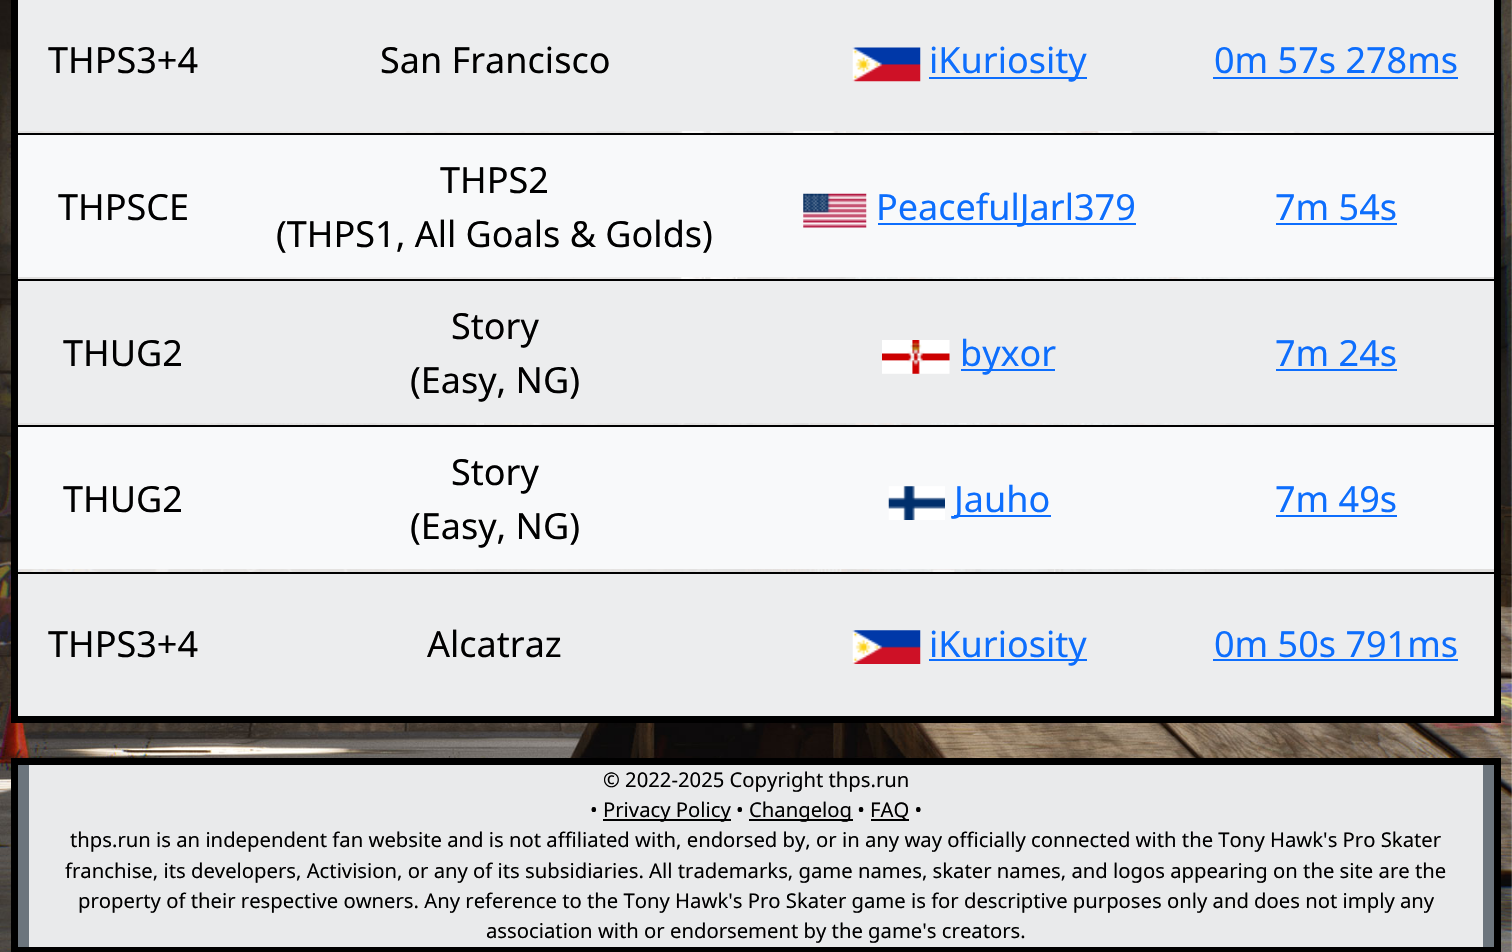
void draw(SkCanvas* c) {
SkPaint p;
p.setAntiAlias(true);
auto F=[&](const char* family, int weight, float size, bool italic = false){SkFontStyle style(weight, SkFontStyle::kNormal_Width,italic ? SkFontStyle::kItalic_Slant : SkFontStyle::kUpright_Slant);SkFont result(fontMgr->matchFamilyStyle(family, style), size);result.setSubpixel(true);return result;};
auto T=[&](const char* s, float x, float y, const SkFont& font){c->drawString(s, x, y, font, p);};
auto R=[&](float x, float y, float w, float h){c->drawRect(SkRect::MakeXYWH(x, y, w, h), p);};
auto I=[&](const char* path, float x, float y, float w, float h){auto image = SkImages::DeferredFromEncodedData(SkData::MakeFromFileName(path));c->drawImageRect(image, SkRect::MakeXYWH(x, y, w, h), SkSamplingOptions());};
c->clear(0xffffffff);
I("1.png",0,0,1512,952);
p.setColor(0xd9ffffff);
R(18,131,1476,441);
p.setColor(0xff000000);
R(14,133,1485,2);
R(14,279,1485,2);
R(14,425,1485,2);
R(14,572,1485,2);
R(1494,0,7,722);
R(11,716,1490,7);
R(11,0,7,722);
p.setColor(0xffecedee);
R(18,0,1476,131);
auto f1 = F("Noto Sans",400,36);
p.setColor(0xff000000);
T("THPS3+4",48,73,f1);
T("San Francisco",380,73,f1);
I("2.png",852,47,69,35);
p.setColor(0xff0d6efd);
R(929,77,158,2);
T("iKuriosity",929,73,f1);
T("0m 57s 278ms",1214,73,f1);
R(1213,77,245,2);
p.setColor(0xfff8f9fa);
R(18,135,1476,142);
p.setColor(0xff000000);
T("THPSCE",58,220,f1);
T("THPS2",440,193,f1);
T("(THPS1, All Goals & Golds)",276,247,f1);
I("3.png",803,193,64,35);
p.setColor(0xff0d6efd);
R(878,223,258,2);
T("PeacefulJarl379",876,220,f1);
T("7m 54s",1275,220,f1);
R(1276,223,121,2);
p.setColor(0xffecedee);
R(18,281,1476,142);
p.setColor(0xff000000);
T("THUG2",63,366,f1);
T("Story",451,339,f1);
T("(Easy, NG)",410,393,f1);
I("4.png",882,340,68,34);
p.setColor(0xff0d6efd);
R(961,369,94,2);
T("byxor",960,366,f1);
T("7m 24s",1275,366,f1);
R(1276,369,121,2);
p.setColor(0xfff8f9fa);
R(18,427,1476,142);
p.setColor(0xff000000);
T("THUG2",63,512,f1);
T("Story",451,485,f1);
T("(Easy, NG)",410,539,f1);
I("5.png",888,486,57,34);
p.setColor(0xff0d6efd);
R(954,515,97,2);
T("Jauho",954,512,f1);
T("7m 49s",1275,512,f1);
R(1276,515,121,2);
p.setColor(0xffecedee);
R(18,574,1476,142);
p.setColor(0xff000000);
T("THPS3+4",48,657,f1);
T("Alcatraz",427,657,f1);
I("6.png",852,630,69,34);
p.setColor(0xff0d6efd);
R(929,659,158,2);
T("iKuriosity",929,657,f1);
T("0m 50s 791ms",1214,657,f1);
R(1213,659,245,2);
p.setColor(0xff6c757d);
c->drawRect(SkRect::MakeXYWH(14.5,761.5,1483,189),p);
p.setStroke(true);
p.setStrokeWidth(7);
p.setColor(0xff000000);
c->drawRect(SkRect::MakeXYWH(14.5,761.5,1483,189),p);
p.setStroke(false);
p.setColor(0xffe9eaeb);
R(29,765,1454,182);
auto f2 = F("Noto Sans",400,20.25);
p.setColor(0xff000000);
T("© 2022-2025 Copyright thps.run",603,787,f2);
T("•",590,817,f2);
R(603,819,128,2);
T("Privacy Policy •",603,817,f2);
R(749,819,104,2);
T("Changelog •",749,817,f2);
R(871,819,38,2);
T("FAQ •",870,817,f2);
T("thps.run is an independent fan website and is not affiliated with, endorsed by, or in any way officially connected with the Tony Hawk's Pro Skater",70,847,f2);
T("franchise, its developers, Activision, or any of its subsidiaries. All trademarks, game names, skater names, and logos appearing on the site are the",65,878,f2);
T("property of their respective owners. Any reference to the Tony Hawk's Pro Skater game is for descriptive purposes only and does not imply any",78,908,f2);
T("association with or endorsement by the game's creators.",486,938,f2);
}
